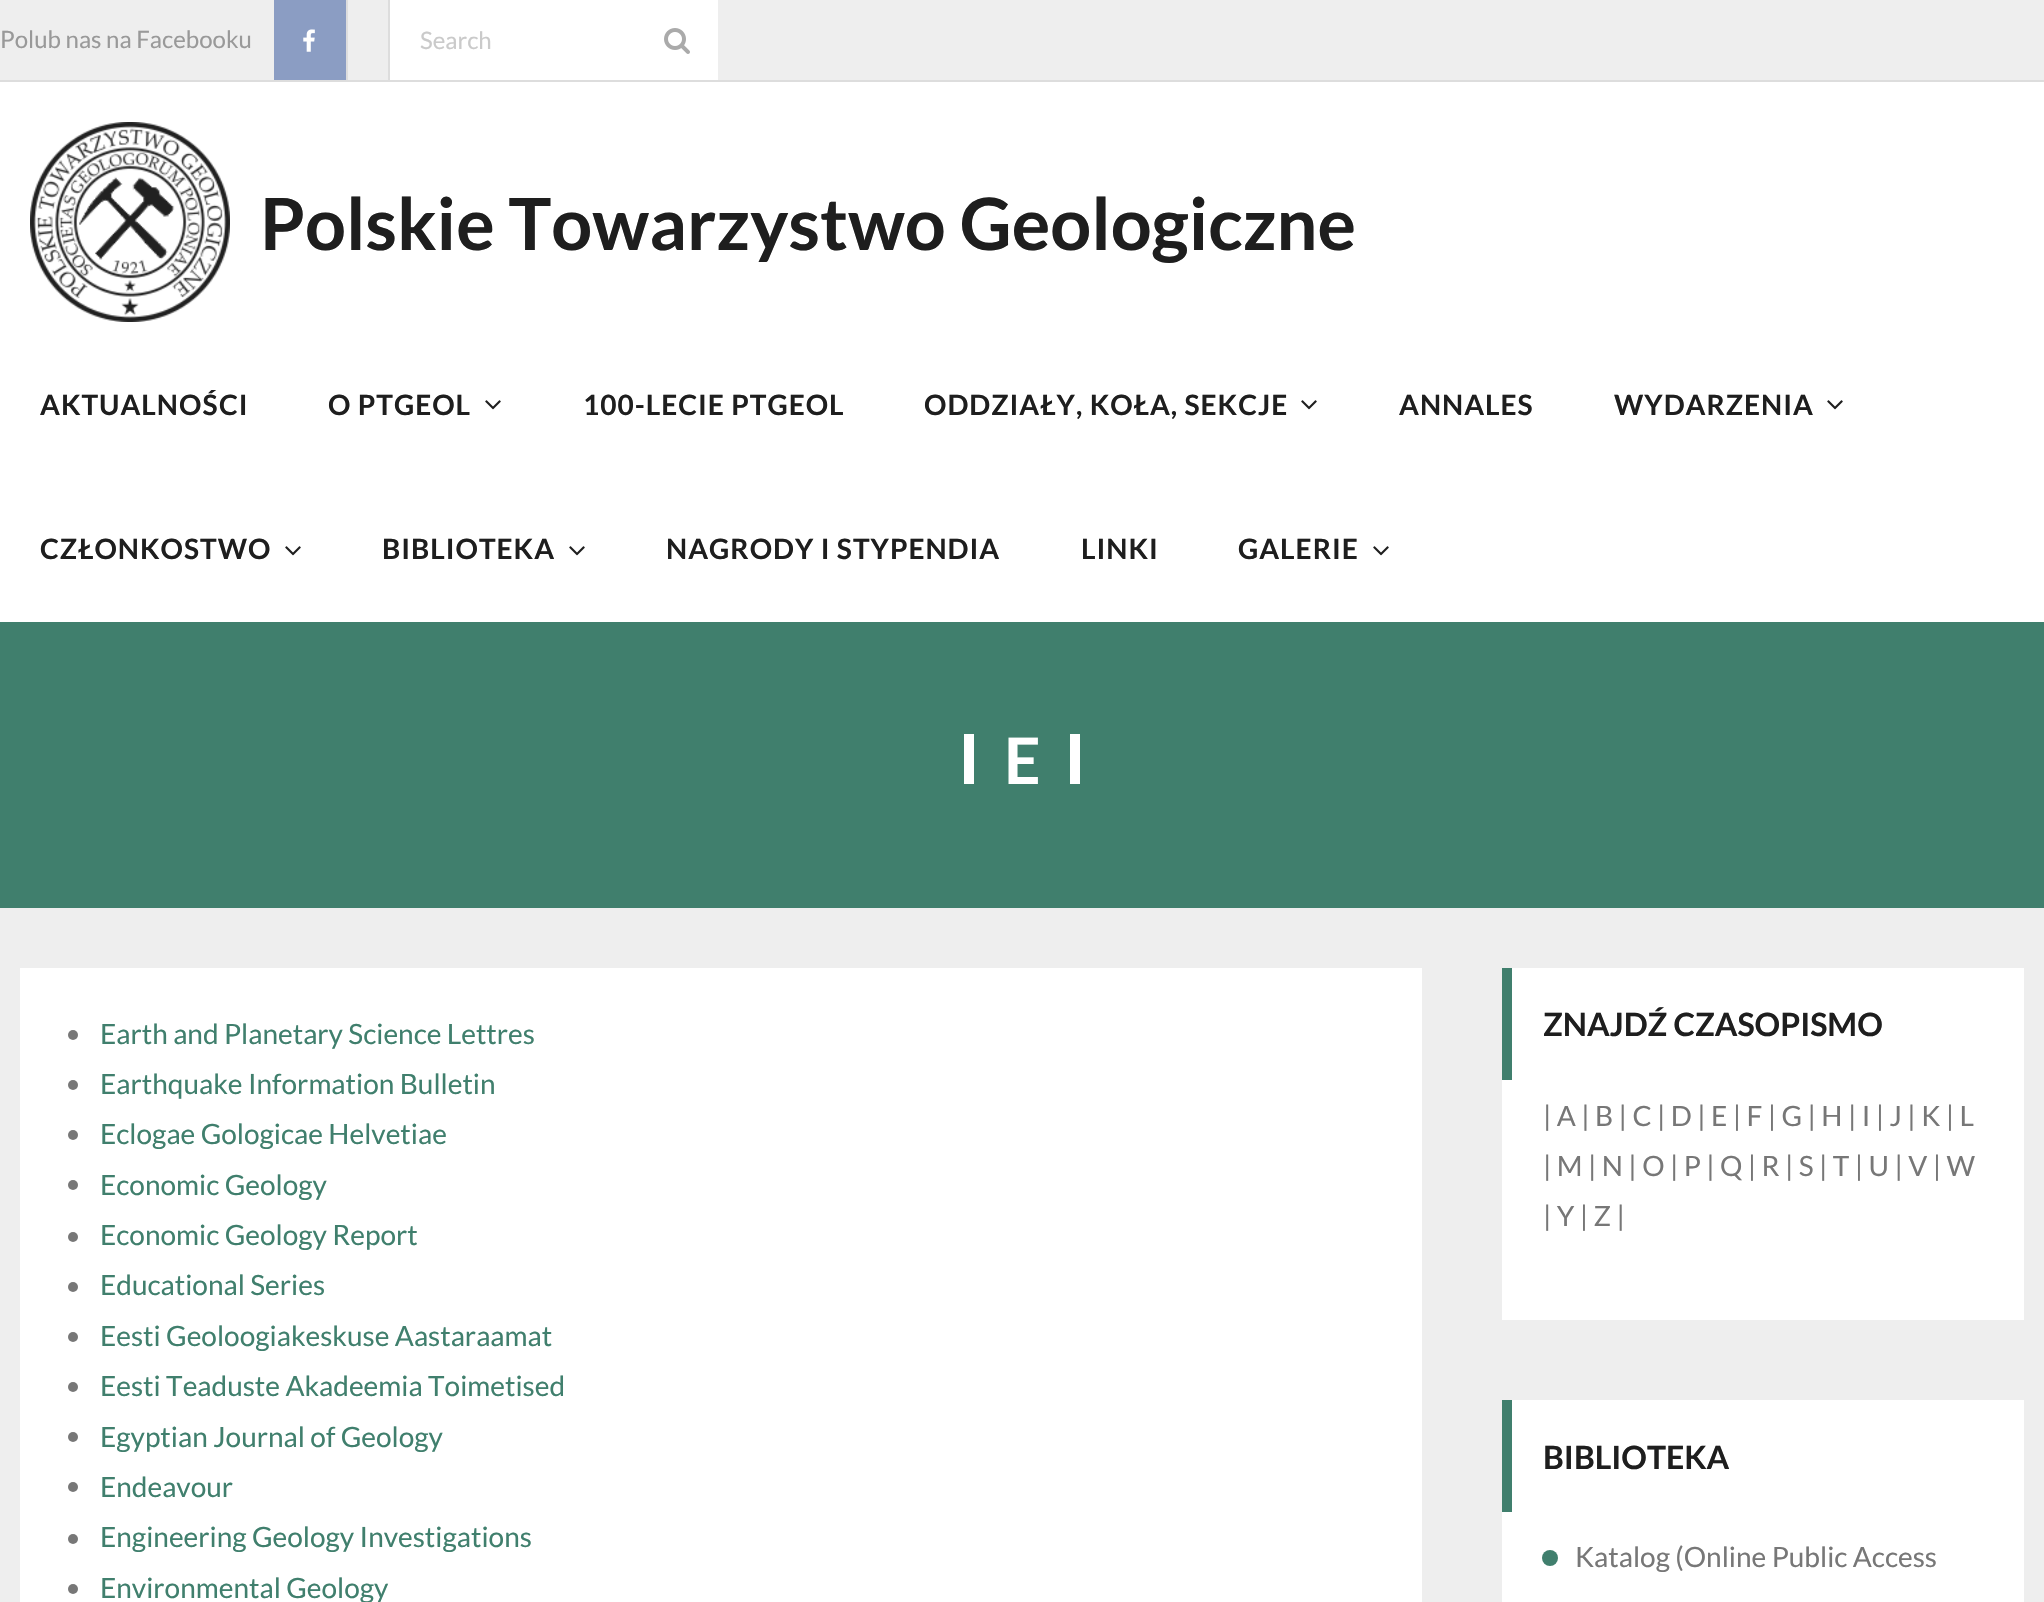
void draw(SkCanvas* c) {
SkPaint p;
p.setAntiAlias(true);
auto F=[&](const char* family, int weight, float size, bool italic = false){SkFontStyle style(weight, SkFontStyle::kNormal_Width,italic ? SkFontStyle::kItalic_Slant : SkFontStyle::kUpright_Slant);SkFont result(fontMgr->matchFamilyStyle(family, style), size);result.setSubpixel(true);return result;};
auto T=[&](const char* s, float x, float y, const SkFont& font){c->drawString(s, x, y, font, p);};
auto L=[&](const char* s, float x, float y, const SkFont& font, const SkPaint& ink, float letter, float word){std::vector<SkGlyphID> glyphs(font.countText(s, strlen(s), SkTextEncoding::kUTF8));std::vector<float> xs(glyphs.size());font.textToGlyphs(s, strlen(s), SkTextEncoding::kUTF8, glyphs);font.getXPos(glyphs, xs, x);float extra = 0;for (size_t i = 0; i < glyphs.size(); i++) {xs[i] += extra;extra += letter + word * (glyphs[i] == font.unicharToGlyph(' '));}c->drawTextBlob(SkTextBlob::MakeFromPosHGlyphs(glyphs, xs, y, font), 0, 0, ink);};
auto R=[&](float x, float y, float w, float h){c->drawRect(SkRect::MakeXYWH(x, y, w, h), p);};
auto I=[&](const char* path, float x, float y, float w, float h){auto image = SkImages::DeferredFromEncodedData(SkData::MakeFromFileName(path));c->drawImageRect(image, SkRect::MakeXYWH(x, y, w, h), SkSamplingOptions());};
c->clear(0xffeeeeee);
p.setColor(0xffdddddd);
R(0,80,2044,2);
auto f1 = F("Lato",400,24);
p.setColor(0xff999999);
T("Polub nas na Facebooku",0,48,f1);
p.setColor(0xff8b9dc3);
R(274,0,72,80);
p.setColor(0xffdddddd);
R(346,0,2,80);
I("1.png",303,29,12,23);
p.setColor(0xffffffff);
R(390,0,328,80);
p.setColor(0xffdddddd);
R(388,0,2,80);
p.setColor(0xffcacaca);
T("Search",420,49,f1);
I("2.png",664,28,26,26);
p.setColor(0xffffffff);
R(0,82,2044,540);
I("3.png",30,122,200,200);
auto f2 = F("Lato",700,72);
p.setColor(0xff1e1e1e);
T("Polskie Towarzystwo Geologiczne",260,250,f2);
auto f3 = F("Lato",700,28);
L("AKTUALNOŚCI",40,415,f3,p,1,0);
L("O PTGEOL",328,415,f3,p,1,0);
I("4.png",485,400,16,10);
L("100-LECIE PTGEOL",583,415,f3,p,1,0);
L("ODDZIAŁY, KOŁA, SEKCJE",924,415,f3,p,1,0);
I("4.png",1301,400,16,10);
L("ANNALES",1399,415,f3,p,1,0);
L("WYDARZENIA",1614,415,f3,p,1,0);
I("4.png",1827,400,16,10);
L("CZŁONKOSTWO",40,559,f3,p,1,0);
I("4.png",285,546,16,10);
L("BIBLIOTEKA",382,559,f3,p,1,0);
I("4.png",569,546,16,10);
L("NAGRODY I STYPENDIA",666,559,f3,p,1,0);
L("LINKI",1081,559,f3,p,1,0);
L("GALERIE",1238,559,f3,p,1,0);
I("4.png",1373,546,16,10);
p.setColor(0xff407f6d);
R(0,622,2044,286);
p.setColor(0xffffffff);
R(964,734,10,50);
auto f4 = F("Lato",700,64);
T("E",1004,784,f4);
R(1070,734,10,50);
R(20,968,1402,634);
p.setColor(0xff777777);
c->drawCircle(73,1035,5,p);
auto f5 = F("Lato",400,28);
p.setColor(0xff407f6d);
T("Earth and Planetary Science Lettres",100,1044,f5);
p.setColor(0xff777777);
c->drawCircle(73,1085,5,p);
p.setColor(0xff407f6d);
T("Earthquake Information Bulletin",100,1094,f5);
p.setColor(0xff777777);
c->drawCircle(73,1135,5,p);
p.setColor(0xff407f6d);
T("Eclogae Gologicae Helvetiae",100,1144,f5);
p.setColor(0xff777777);
c->drawCircle(73,1185,5,p);
p.setColor(0xff407f6d);
T("Economic Geology",100,1195,f5);
p.setColor(0xff777777);
c->drawCircle(73,1237,5,p);
p.setColor(0xff407f6d);
T("Economic Geology Report",100,1245,f5);
p.setColor(0xff777777);
c->drawCircle(73,1287,5,p);
p.setColor(0xff407f6d);
T("Educational Series",100,1295,f5);
p.setColor(0xff777777);
c->drawCircle(73,1337,5,p);
p.setColor(0xff407f6d);
T("Eesti Geoloogiakeskuse Aastaraamat",100,1346,f5);
p.setColor(0xff777777);
c->drawCircle(73,1387,5,p);
p.setColor(0xff407f6d);
T("Eesti Teaduste Akadeemia Toimetised",100,1396,f5);
p.setColor(0xff777777);
c->drawCircle(73,1437,5,p);
p.setColor(0xff407f6d);
T("Egyptian Journal of Geology",100,1447,f5);
p.setColor(0xff777777);
c->drawCircle(73,1487,5,p);
p.setColor(0xff407f6d);
T("Endeavour",100,1497,f5);
p.setColor(0xff777777);
c->drawCircle(73,1539,5,p);
p.setColor(0xff407f6d);
T("Engineering Geology Investigations",100,1547,f5);
p.setColor(0xff777777);
c->drawCircle(73,1589,5,p);
p.setColor(0xff407f6d);
T("Environmental Geology",100,1598,f5);
p.setColor(0xffffffff);
R(1502,968,522,352);
p.setColor(0xff407f6d);
R(1502,968,10,112);
auto f6 = F("Lato",700,32);
p.setColor(0xff1e1e1e);
T("ZNAJDŹ CZASOPISMO",1543,1036,f6);
p.setColor(0xff777777);
T("| A | B | C | D | E | F | G | H | I | J | K | L",1543,1126,f5);
T("| M | N | O | P | Q | R | S | T | U | V | W",1543,1176,f5);
T("| Y | Z |",1543,1226,f5);
p.setColor(0xffffffff);
R(1502,1400,522,202);
p.setColor(0xff407f6d);
R(1502,1400,10,112);
p.setColor(0xff1e1e1e);
T("BIBLIOTEKA",1543,1469,f6);
p.setColor(0xff407f6d);
c->drawCircle(1550,1558,8,p);
p.setColor(0xff777777);
T("Katalog (Online Public Access",1575,1567,f5);
}
